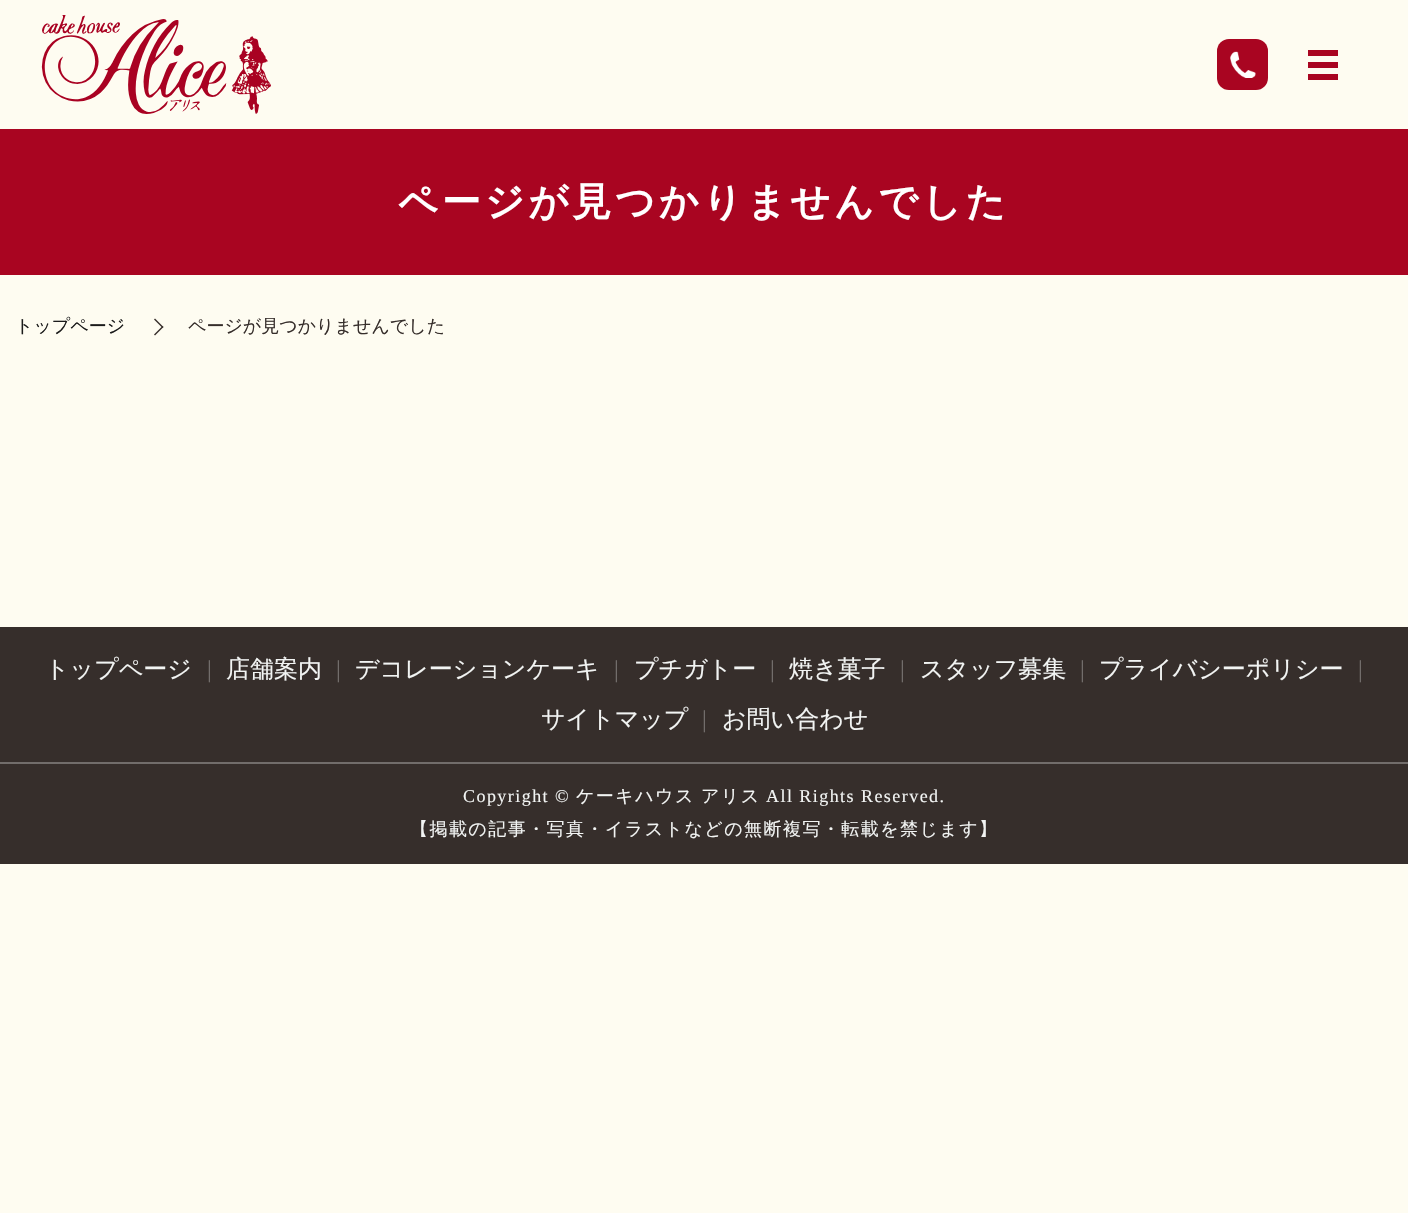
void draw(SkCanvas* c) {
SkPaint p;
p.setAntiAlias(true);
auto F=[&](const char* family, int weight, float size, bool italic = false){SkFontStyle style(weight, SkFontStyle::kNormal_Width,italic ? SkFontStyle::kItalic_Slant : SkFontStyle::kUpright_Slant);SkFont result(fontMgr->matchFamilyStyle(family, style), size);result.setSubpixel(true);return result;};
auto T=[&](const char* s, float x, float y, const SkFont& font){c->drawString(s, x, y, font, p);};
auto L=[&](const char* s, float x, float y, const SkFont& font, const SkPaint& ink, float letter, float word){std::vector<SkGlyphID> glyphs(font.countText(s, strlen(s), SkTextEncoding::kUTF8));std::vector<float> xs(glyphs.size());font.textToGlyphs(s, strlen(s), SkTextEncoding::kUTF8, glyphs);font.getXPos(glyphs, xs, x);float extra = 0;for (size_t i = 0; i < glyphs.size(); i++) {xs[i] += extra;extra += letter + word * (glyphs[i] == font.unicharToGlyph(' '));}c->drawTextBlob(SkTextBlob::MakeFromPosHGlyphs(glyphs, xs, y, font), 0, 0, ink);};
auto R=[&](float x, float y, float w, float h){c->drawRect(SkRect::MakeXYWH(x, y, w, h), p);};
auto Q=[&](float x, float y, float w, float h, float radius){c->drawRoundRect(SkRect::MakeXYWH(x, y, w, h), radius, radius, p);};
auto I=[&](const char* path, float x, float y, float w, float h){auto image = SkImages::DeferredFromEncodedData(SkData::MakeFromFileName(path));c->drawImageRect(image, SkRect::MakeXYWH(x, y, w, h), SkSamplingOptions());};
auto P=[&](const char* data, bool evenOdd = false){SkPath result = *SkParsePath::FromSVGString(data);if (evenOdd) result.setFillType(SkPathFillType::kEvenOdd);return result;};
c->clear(0xfffefcf1);
I("1.png",41,15,230,99);
p.setColor(0xffa90521);
Q(1217,39,51,51,12);
I("2.png",1230,51,26,27);
R(1308,50,30,6);
R(1308,62,30,6);
R(1308,74,30,6);
R(0,129,1408,146);
auto f1 = F("WenQuanYi Zen Hei",700,39);
p.setColor(0xffffffff);
L("ページが見つかりませんでした",398,215,f1,p,3.9,0);
auto f2 = F("WenQuanYi Zen Hei",500,18);
p.setColor(0xff1b1b1b);
T("トップページ",15,332,f2);
p.setColor(0xff362e2b);
c->drawPath(P("M155 318.5l8.5 8.5l-1 1l-8.5-8.5z"),p);
c->drawPath(P("M162.5 326l1 1l-8.5 8.5l-1-1z"),p);
T("ページが見つかりませんでした",188,332,f2);
R(0,627,1408,237);
auto f3 = F("WenQuanYi Zen Hei",500,24);
p.setColor(0xfff2f4f3);
T("トップページ",45,677,f3);
auto f4 = F("Liberation Serif",400,24);
p.setColor(0xff726d6b);
T("|",207,677,f4);
p.setColor(0xfff2f4f3);
T("店舗案内",226,677,f3);
p.setColor(0xff726d6b);
T("|",336,677,f4);
p.setColor(0xfff2f4f3);
T("デコレーションケーキ",355,677,f3);
p.setColor(0xff726d6b);
T("|",614,677,f4);
p.setColor(0xfff2f4f3);
T("プチガトー",634,677,f3);
p.setColor(0xff726d6b);
T("|",770,677,f4);
p.setColor(0xfff2f4f3);
T("焼き菓子",789,677,f3);
p.setColor(0xff726d6b);
T("|",900,677,f4);
p.setColor(0xfff2f4f3);
T("スタッフ募集",920,677,f3);
p.setColor(0xff726d6b);
T("|",1080,677,f4);
p.setColor(0xfff2f4f3);
T("プライバシーポリシー",1099,677,f3);
p.setColor(0xff726d6b);
T("|",1358,677,f4);
p.setColor(0xfff2f4f3);
T("サイトマップ",541,727,f3);
p.setColor(0xff726d6b);
T("|",702,727,f4);
p.setColor(0xfff2f4f3);
T("お問い合わせ",722,727,f3);
p.setColor(0xff726d6b);
R(0,762,1408,2);
auto f5 = F("Liberation Serif",400,18);
p.setColor(0xfff2f4f3);
L("Copyright ©",463,802,f5,p,1.45,0);
L("ケーキハウス",576,802,f2,p,1.45,0);
L("アリス",701,802,f2,p,1.45,0);
L("All Rights Reserved.",766,802,f5,p,1.45,0);
L("【掲載の記事・写真・イラストなどの無断複写・転載を禁じます】",410,835,f2,p,1.45,0);
}
